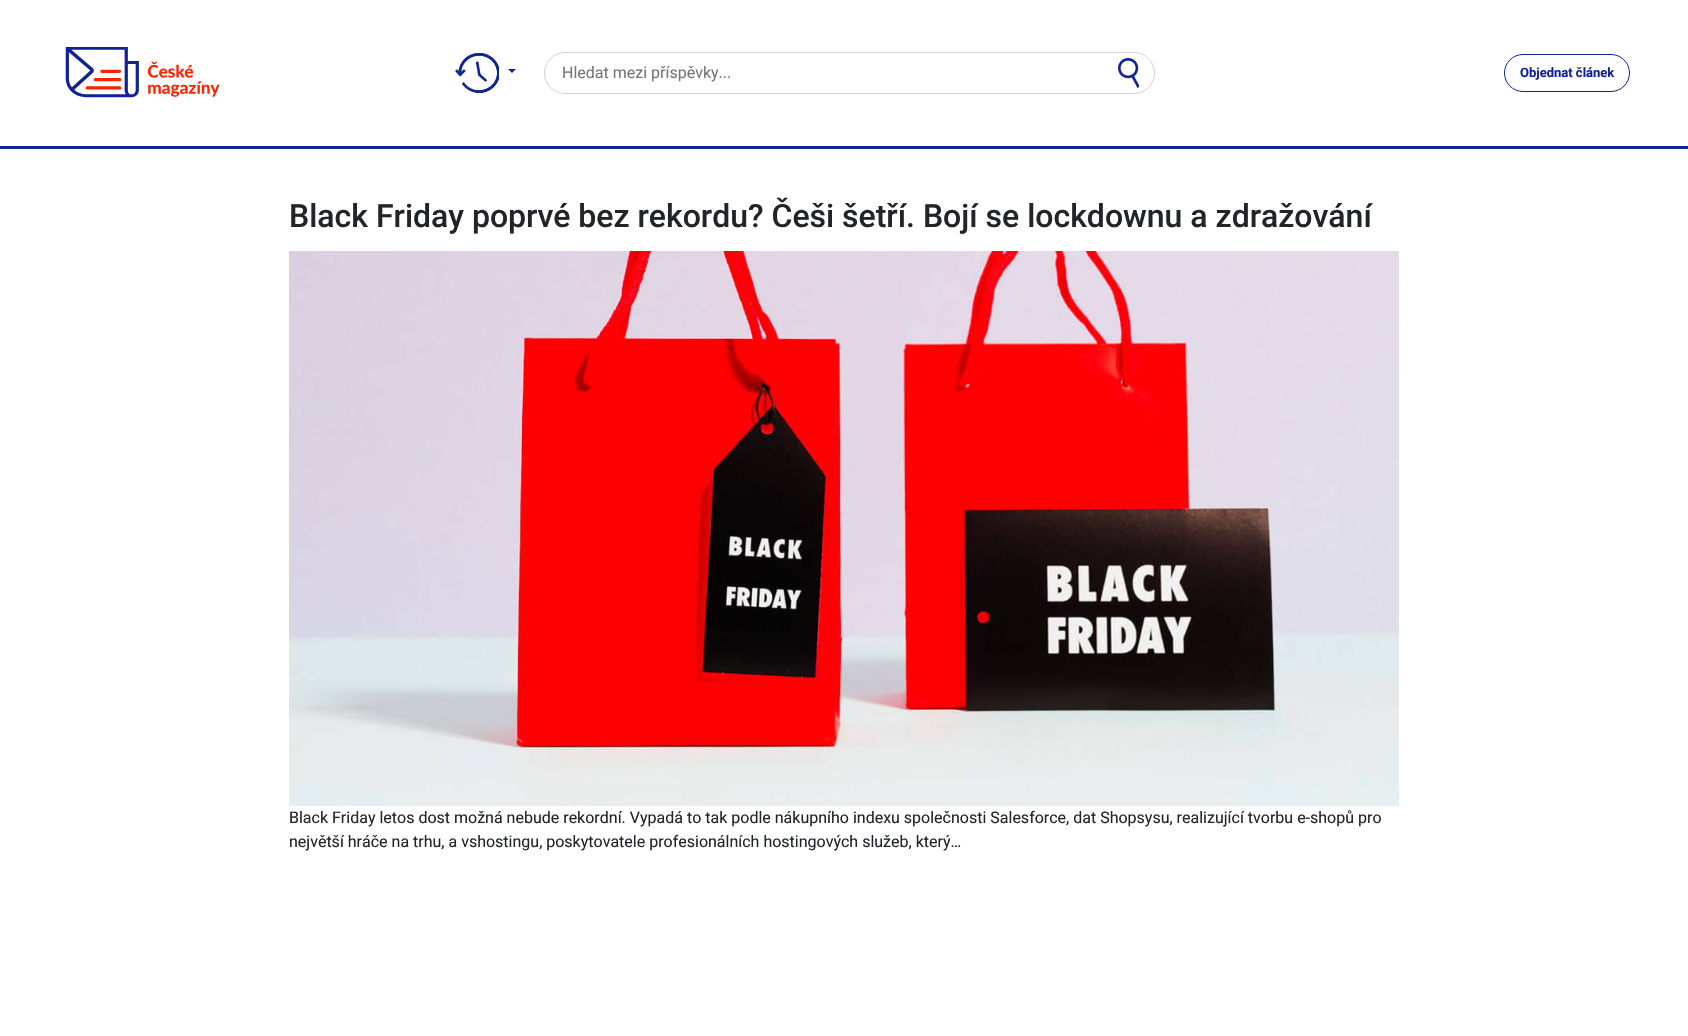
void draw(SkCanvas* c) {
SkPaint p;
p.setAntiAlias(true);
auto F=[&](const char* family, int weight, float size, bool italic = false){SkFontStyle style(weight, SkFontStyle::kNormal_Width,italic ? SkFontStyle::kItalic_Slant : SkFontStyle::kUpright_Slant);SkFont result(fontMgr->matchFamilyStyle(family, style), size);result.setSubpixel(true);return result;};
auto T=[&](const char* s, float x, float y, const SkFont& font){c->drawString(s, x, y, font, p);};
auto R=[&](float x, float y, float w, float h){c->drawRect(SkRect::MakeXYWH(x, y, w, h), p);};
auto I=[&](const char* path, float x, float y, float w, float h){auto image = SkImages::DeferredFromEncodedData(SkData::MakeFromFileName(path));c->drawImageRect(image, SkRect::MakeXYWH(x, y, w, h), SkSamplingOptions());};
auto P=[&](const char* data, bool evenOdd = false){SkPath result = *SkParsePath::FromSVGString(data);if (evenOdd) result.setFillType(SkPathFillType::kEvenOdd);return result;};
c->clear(0xffffffff);
p.setColor(0xff102295);
R(0,146,1688,3);
I("1.png",65,47,155,51);
I("2.png",455,53,44,40);
c->drawPath(P("M508 69h8l-4 4z"),p);
p.setStroke(true);
p.setStrokeWidth(1);
p.setColor(0xffd3d3d3);
c->drawRoundRect(SkRect::MakeXYWH(544.5,52.5,610,41),20.5,20.5,p);
auto f1 = F("Roboto",400,16);
p.setStroke(false);
p.setColor(0xff757575);
T("Hledat mezi příspěvky...",562,78,f1);
I("3.png",1118,58,21,30);
p.setStroke(true);
p.setColor(0xff102295);
c->drawRoundRect(SkRect::MakeXYWH(1504.5,54.5,125,37),18.5,18.5,p);
auto f2 = F("Roboto",700,13);
p.setStroke(false);
T("Objednat článek",1520,77,f2);
auto f3 = F("Roboto",500,32);
p.setColor(0xff212529);
T("Black Friday poprvé bez rekordu? Češi šetří. Bojí se lockdownu a zdražování",289,227,f3);
I("4.png",289,251,1110,555);
T("Black Friday letos dost možná nebude rekordní. Vypadá to tak podle nákupního indexu společnosti Salesforce, dat Shopsysu, realizující tvorbu e-shopů pro",289,823,f1);
T("největší hráče na trhu, a vshostingu, poskytovatele profesionálních hostingových služeb, který…",289,847,f1);
}
